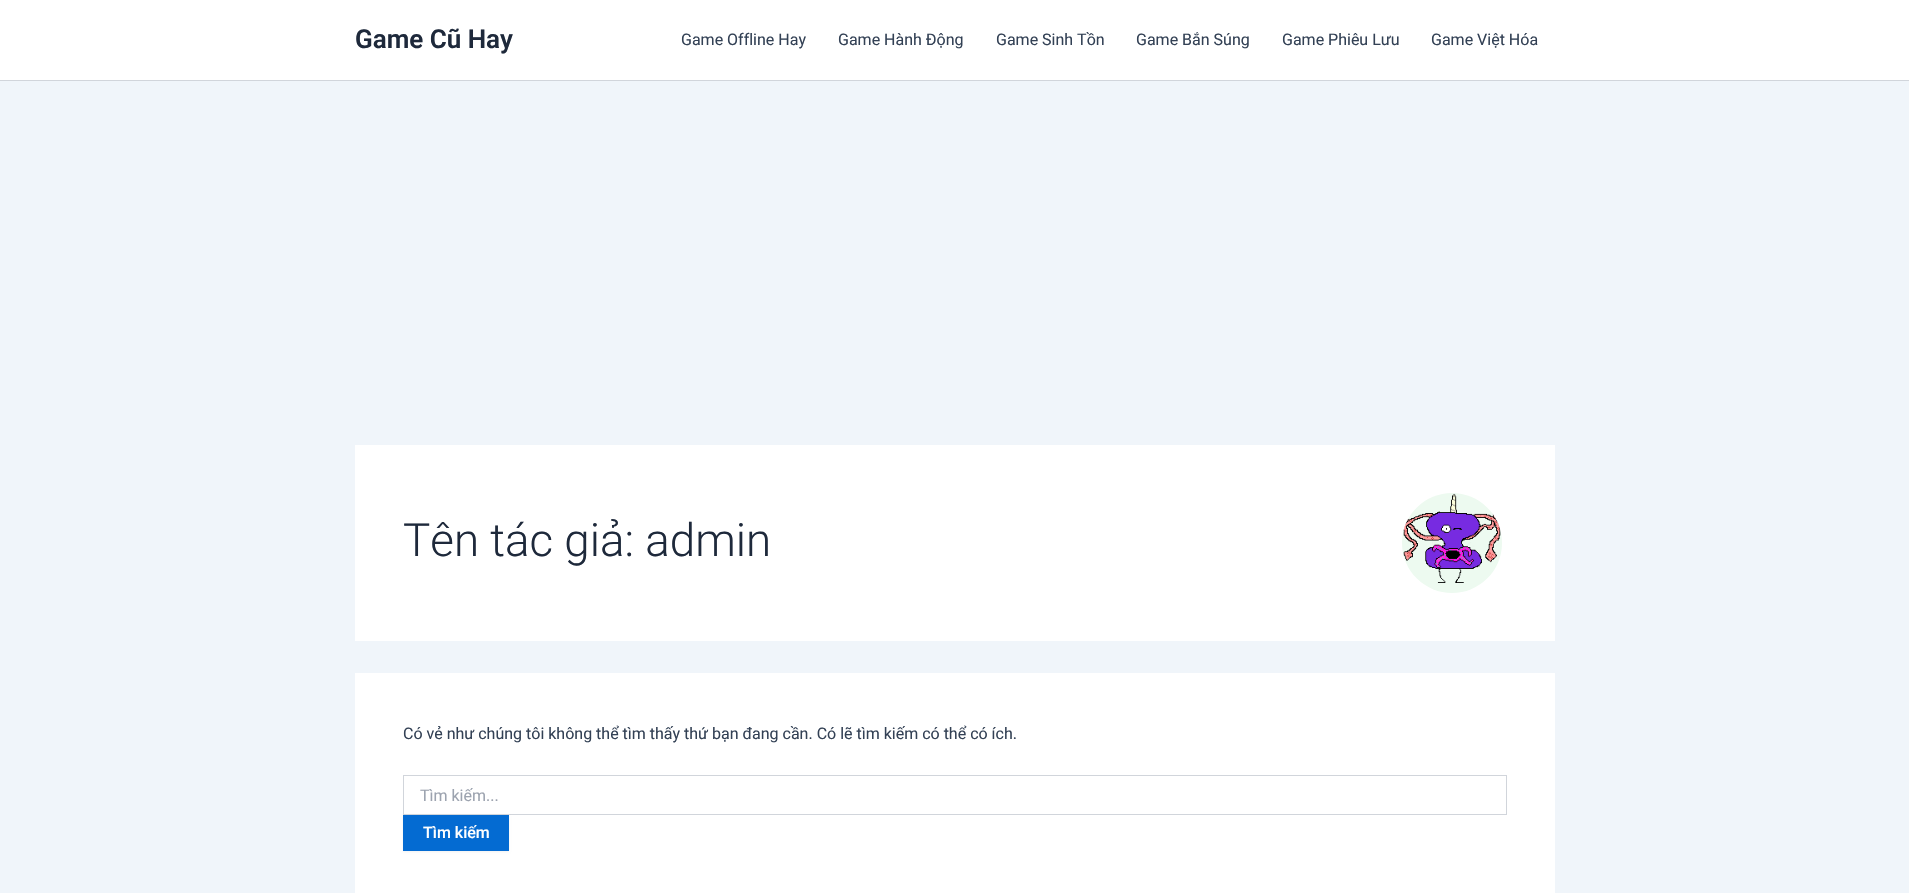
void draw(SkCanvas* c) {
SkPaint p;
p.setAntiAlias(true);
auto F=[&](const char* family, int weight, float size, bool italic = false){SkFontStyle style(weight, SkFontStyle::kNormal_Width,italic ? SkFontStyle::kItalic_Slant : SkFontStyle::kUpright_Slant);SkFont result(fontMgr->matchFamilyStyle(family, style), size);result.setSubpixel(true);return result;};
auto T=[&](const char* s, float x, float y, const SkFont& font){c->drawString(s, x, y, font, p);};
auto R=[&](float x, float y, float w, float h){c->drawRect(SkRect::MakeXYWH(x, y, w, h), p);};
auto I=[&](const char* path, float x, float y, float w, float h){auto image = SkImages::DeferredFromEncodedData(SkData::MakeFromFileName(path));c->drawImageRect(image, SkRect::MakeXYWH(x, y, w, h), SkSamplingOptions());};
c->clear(0xfff0f5fa);
p.setColor(0xffffffff);
R(0,0,1909,80);
p.setColor(0xffd1d5db);
R(0,80,1909,1);
auto f1 = F("Roboto",600,26);
p.setColor(0xff1e293b);
T("Game Cũ Hay",355,48,f1);
auto f2 = F("Roboto",400,16);
p.setColor(0xff334155);
T("Game Offline Hay",681,45,f2);
T("Game Hành Động",838,45,f2);
T("Game Sinh Tồn",996,45,f2);
T("Game Bắn Súng",1136,45,f2);
T("Game Phiêu Lưu",1282,45,f2);
T("Game Việt Hóa",1431,45,f2);
p.setColor(0xffffffff);
R(355,445,1200,196);
auto f3 = F("Roboto",300,45.75);
p.setColor(0xff1e293b);
T("Tên tác giả: admin",403,556,f3);
I("1.png",1402,493,100,100);
p.setColor(0xffffffff);
R(355,673,1200,220);
p.setColor(0xff334155);
T("Có vẻ như chúng tôi không thể tìm thấy thứ bạn đang cần. Có lẽ tìm kiếm có thể có ích.",403,739,f2);
p.setStroke(true);
p.setStrokeWidth(1);
p.setColor(0xffd1d5db);
c->drawRect(SkRect::MakeXYWH(403.5,775.5,1103,39),p);
p.setStroke(false);
p.setColor(0xff9ca3af);
T("Tìm kiếm...",420,801,f2);
p.setColor(0x0d000000);
p.setMaskFilter(SkMaskFilter::MakeBlur(kNormal_SkBlurStyle, 1));
c->drawRect(SkRect::MakeXYWH(403,816,106,36),p);
p.setMaskFilter(nullptr);
p.setColor(0xff046bd2);
R(403,815,106,36);
auto f4 = F("Roboto",500,16);
p.setColor(0xffffffff);
T("Tìm kiếm",423,838,f4);
}
